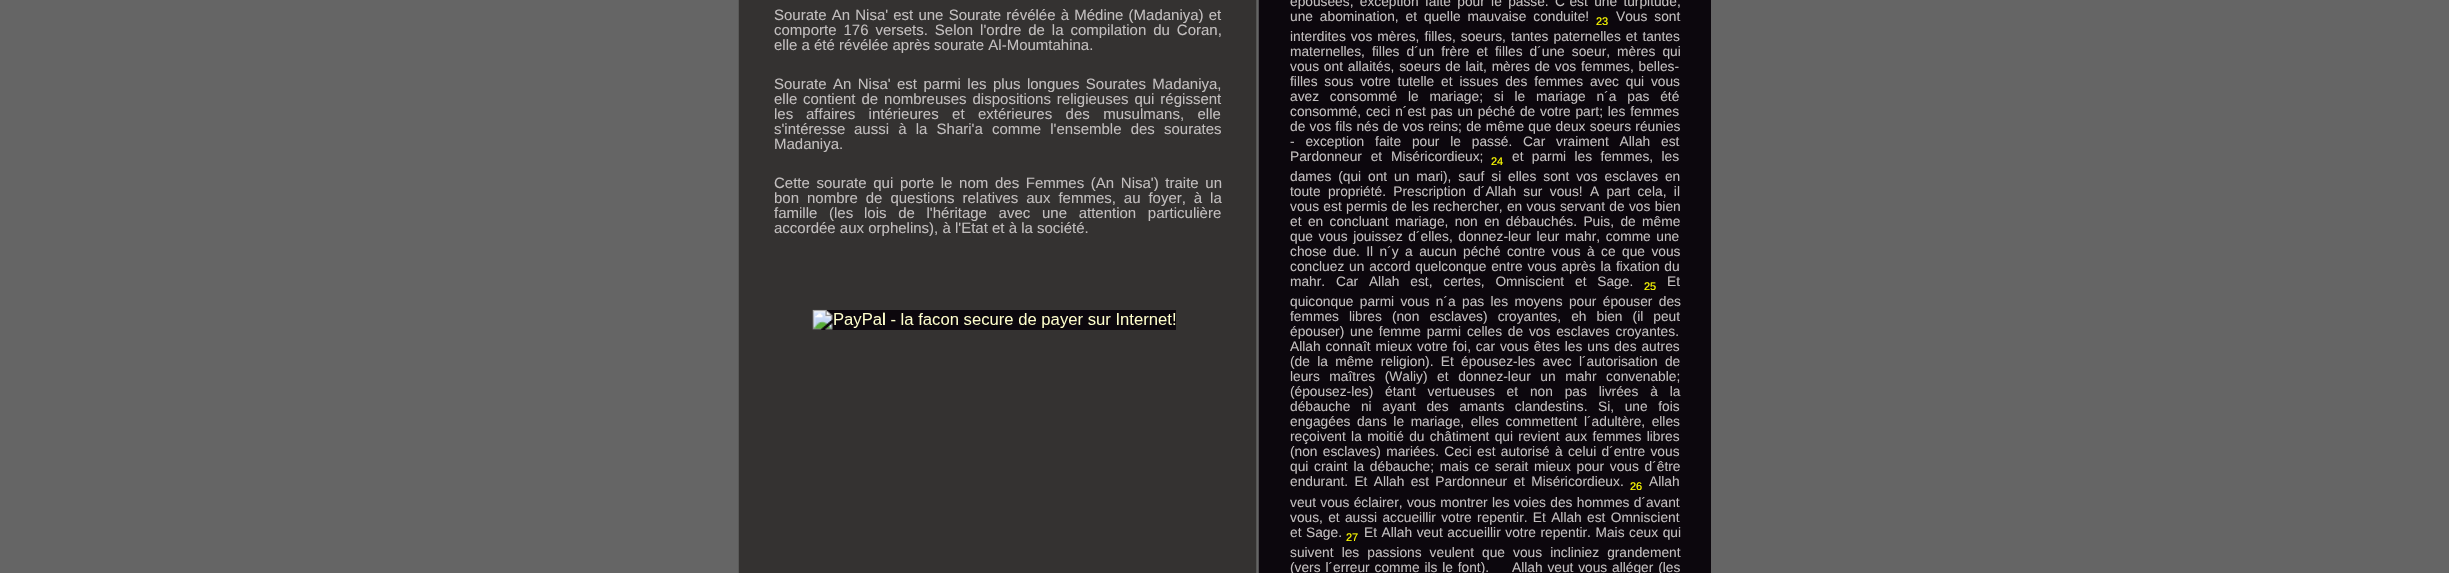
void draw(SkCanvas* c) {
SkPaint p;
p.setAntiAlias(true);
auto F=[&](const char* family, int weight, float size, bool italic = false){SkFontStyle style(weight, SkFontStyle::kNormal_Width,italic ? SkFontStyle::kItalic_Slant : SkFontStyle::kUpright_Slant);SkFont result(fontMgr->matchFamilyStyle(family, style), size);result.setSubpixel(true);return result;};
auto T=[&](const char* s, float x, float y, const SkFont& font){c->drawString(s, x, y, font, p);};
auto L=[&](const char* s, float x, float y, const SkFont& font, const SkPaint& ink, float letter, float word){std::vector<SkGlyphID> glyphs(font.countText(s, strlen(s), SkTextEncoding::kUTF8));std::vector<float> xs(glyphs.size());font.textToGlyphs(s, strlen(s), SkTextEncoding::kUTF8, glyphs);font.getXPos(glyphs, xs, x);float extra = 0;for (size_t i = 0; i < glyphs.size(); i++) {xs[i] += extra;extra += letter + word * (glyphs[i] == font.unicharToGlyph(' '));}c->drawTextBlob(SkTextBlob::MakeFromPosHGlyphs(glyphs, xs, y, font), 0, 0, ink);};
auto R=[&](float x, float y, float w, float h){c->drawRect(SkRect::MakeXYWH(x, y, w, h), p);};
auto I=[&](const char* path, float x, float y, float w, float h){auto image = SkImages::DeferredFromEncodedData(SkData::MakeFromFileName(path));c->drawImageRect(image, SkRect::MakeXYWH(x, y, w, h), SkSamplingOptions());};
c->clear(0xff656565);
p.setColor(0xff0c070d);
R(1258,0,453,573);
I("1.png",738,0,521,573);
auto f1 = F("Liberation Sans",400,15);
p.setColor(0xffc2bebe);
L("Sourate An Nisa' est une Sourate révélée à Médine (Madaniya) et",774,20,f1,p,0,1);
L("comporte 176 versets. Selon l'ordre de la compilation du Coran,",774,35,f1,p,0,2.75);
T("elle a été révélée après sourate Al-Moumtahina.",774,50,f1);
L("Sourate An Nisa' est parmi les plus longues Sourates Madaniya,",774,89,f1,p,0,2.25);
T("elle",774,104,f1);
L("contient de nombreuses dispositions religieuses qui régissent",803,104,f1,p,0,1.75);
T("les",774,119,f1);
L("affaires intérieures et extérieures des musulmans, elle",806,119,f1,p,0,9.25);
T("s'intéresse",774,134,f1);
L("aussi à la Shari'a comme l'ensemble des sourates",854,134,f1,p,0,5);
T("Madaniya.",774,149,f1);
L("Cette sourate qui porte le nom des Femmes (An Nisa') traite un",774,188,f1,p,0,2.5);
T("bon",774,203,f1);
L("nombre de questions relatives aux femmes, au foyer, à la",807,203,f1,p,0,3.75);
L("famille (les",774,218,f1,p,0,7.5);
L("lois de l'héritage avec une attention particulière",864,218,f1,p,0,7.5);
T("accordée aux orphelins), à l'Etat et à la société.",774,233,f1);
p.setColor(0xff0c070d);
R(813,310,363,20);
I("2.png",812,309,364,21);
auto f2 = F("Liberation Sans",400,17);
p.setColor(0xffffffcc);
T("l",882,325,f2);
auto f3 = F("Liberation Sans",400,13.75);
p.setColor(0xffc2bebe);
L("épousées, exception faite pour le passé. C´est une turpitude,",1290,6,f3,p,0,2.5);
L("une abomination, et quelle mauvaise conduite!",1290,21,f3,p,0,3.1);
auto f4 = F("Liberation Sans",400,11);
p.setColor(0xffffff00);
T("23",1596,25,f4);
p.setColor(0xffc2bebe);
L("Vous sont",1616,21,f3,p,0,3.1);
L("interdites vos mères, filles, soeurs, tantes paternelles et tantes",1290,41,f3,p,0,1.25);
L("maternelles, filles d´un frère et filles d´une soeur, mères qui",1290,56,f3,p,0,3.25);
L("vous ont allaités, soeurs de lait, mères de vos femmes, belles-",1290,71,f3,p,0,1);
L("filles sous votre tutelle et issues des femmes avec qui vous",1290,86,f3,p,0,3);
L("avez consommé le mariage; si le mariage n´a pas été",1290,101,f3,p,0,7);
L("consommé, ceci n´est pas un péché de votre part; les femmes",1290,116,f3,p,0,1);
L("de vos fils nés de vos reins; de même que deux soeurs réunies",1290,131,f3,p,0,.5);
L("- exception faite pour le passé. Car vraiment Allah est",1290,146,f3,p,0,7);
L("Pardonneur et Miséricordieux;",1290,161,f3,p,0,5);
p.setColor(0xffffff00);
T("24",1491,165,f4);
p.setColor(0xffc2bebe);
L("et parmi les femmes, les",1512,161,f3,p,0,4.5);
L("dames (qui ont un mari), sauf si elles sont vos esclaves en",1290,181,f3,p,0,3.1);
L("toute propriété. Prescription d´Allah sur vous! A part cela, il",1290,196,f3,p,0,3.5);
L("vous est permis de les rechercher, en vous servant de vos bien",1290,211,f3,p,0,.5);
L("et en concluant mariage, non en débauchés. Puis, de même",1290,226,f3,p,0,2.6);
L("que vous jouissez d´elles, donnez-leur leur mahr, comme une",1290,241,f3,p,0,1.75);
L("chose due. Il n´y a aucun péché contre vous à ce que vous",1290,256,f3,p,0,2.6);
L("concluez un accord quelconque entre vous après la fixation du",1290,271,f3,p,0,1);
L("mahr. Car Allah est, certes, Omniscient et Sage.",1290,286,f3,p,0,7);
p.setColor(0xffffff00);
T("25",1644,290,f4);
p.setColor(0xffc2bebe);
T("Et",1667,286,f3);
L("quiconque parmi vous n´a pas les moyens pour épouser des",1290,306,f3,p,0,2.5);
L("femmes libres (non esclaves) croyantes, eh bien (il peut",1290,321,f3,p,0,6.25);
L("épouser) une femme parmi celles de vos esclaves croyantes.",1290,336,f3,p,0,2);
L("Allah connaît mieux votre foi, car vous êtes les uns des autres",1290,351,f3,p,0,1.1);
L("(de la même religion). Et épousez-les avec l´autorisation de",1290,366,f3,p,0,3.5);
L("leurs maîtres (Waliy) et donnez-leur un mahr convenable;",1290,381,f3,p,0,5.75);
L("(épousez-les) étant vertueuses et non pas livrées à la",1290,396,f3,p,0,8);
L("débauche ni ayant des amants clandestins. Si, une fois",1290,411,f3,p,0,6.75);
L("engagées dans le mariage, elles commettent l´adultère, elles",1290,426,f3,p,0,2.75);
L("reçoivent la moitié du châtiment qui revient aux femmes libres",1290,441,f3,p,0,1.5);
L("(non esclaves) mariées. Ceci est autorisé à celui d´entre vous",1290,456,f3,p,0,1.5);
L("qui craint la débauche; mais ce serait mieux pour vous d´être",1290,471,f3,p,0,1.9);
L("endurant. Et Allah est Pardonneur et Miséricordieux.",1290,486,f3,p,0,2.5);
p.setColor(0xffffff00);
T("26",1630,490,f4);
p.setColor(0xffc2bebe);
T("Allah",1649,486,f3);
L("veut vous éclairer, vous montrer les voies des hommes d´avant",1290,507,f3,p,0,.5);
L("vous, et aussi accueillir votre repentir. Et Allah est Omniscient",1290,522,f3,p,0,1.5);
L("et Sage.",1290,537,f3,p,0,.75);
p.setColor(0xffffff00);
T("27",1346,541,f4);
p.setColor(0xffc2bebe);
L("Et Allah veut accueillir votre repentir. Mais ceux qui",1364,537,f3,p,0,.75);
L("suivent les passions veulent que vous incliniez grandement",1290,557,f3,p,0,4.25);
L("(vers l´erreur comme ils le font).",1290,572,f3,p,0,1);
L("Allah veut vous alléger (les",1512,572,f3,p,0,1);
}
